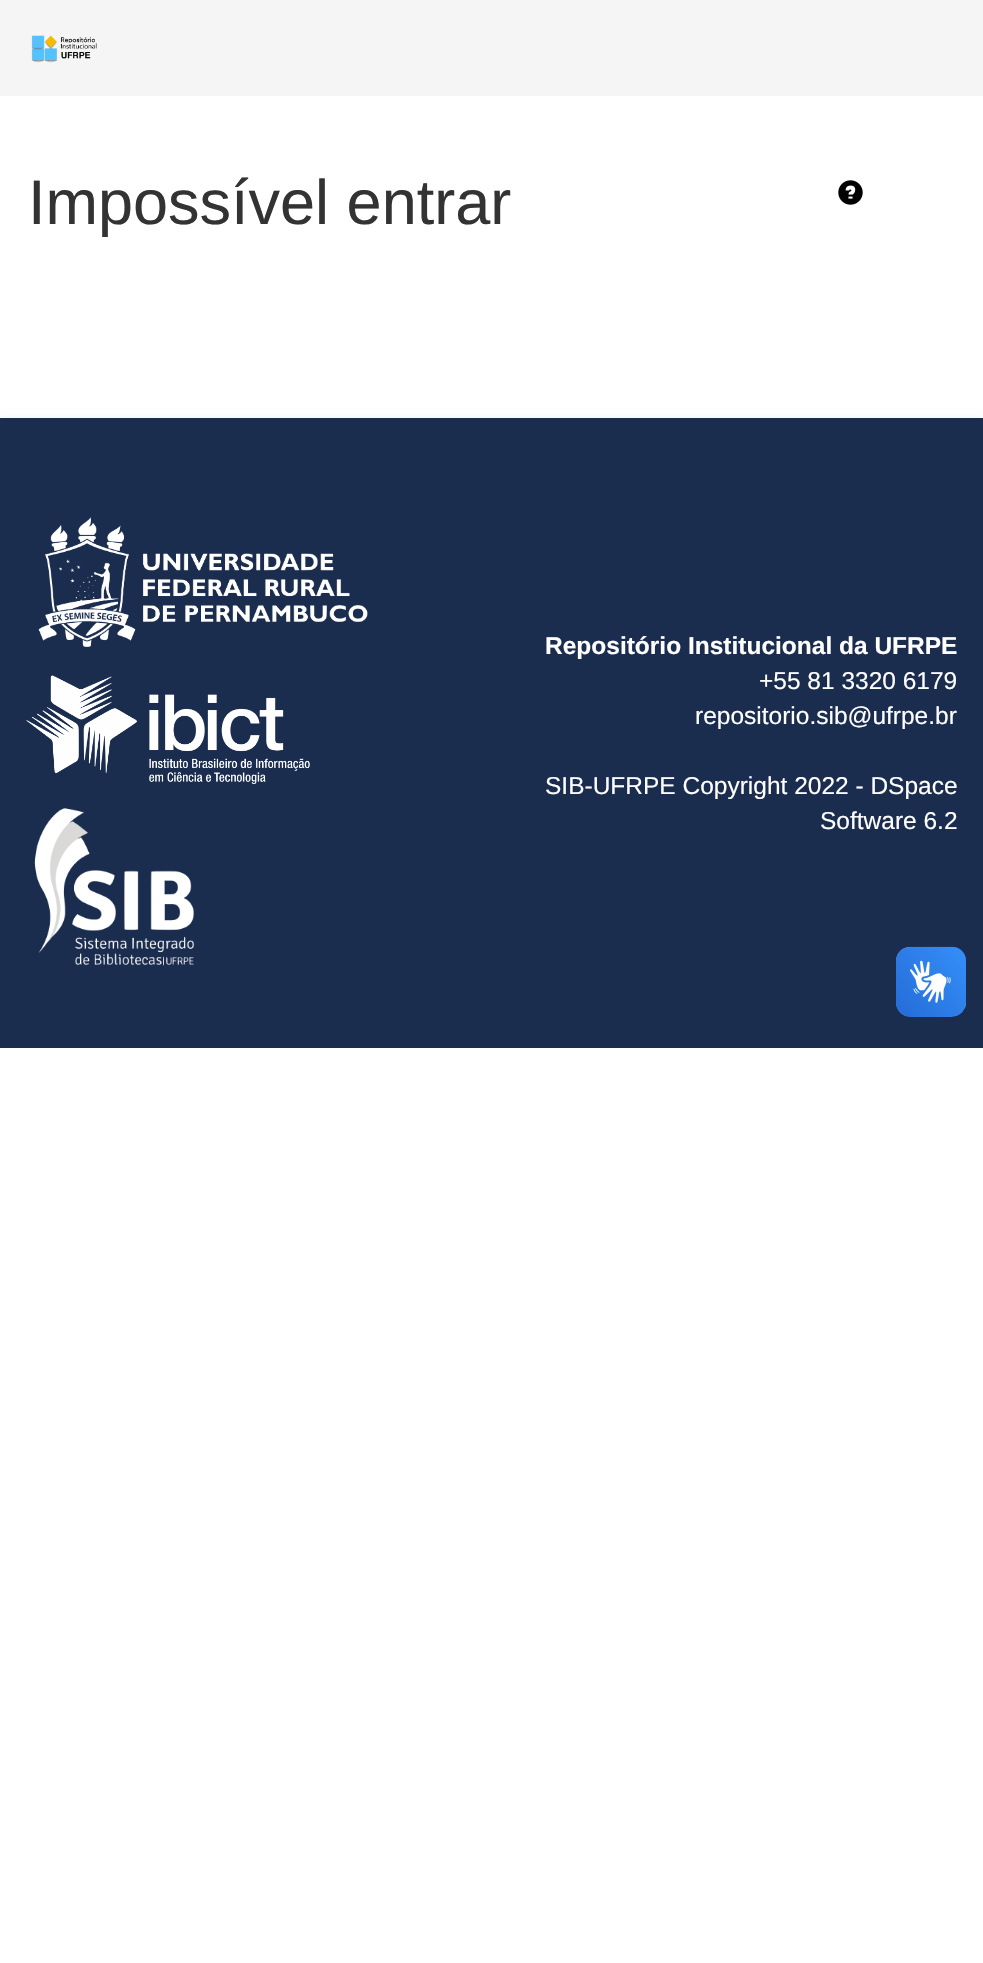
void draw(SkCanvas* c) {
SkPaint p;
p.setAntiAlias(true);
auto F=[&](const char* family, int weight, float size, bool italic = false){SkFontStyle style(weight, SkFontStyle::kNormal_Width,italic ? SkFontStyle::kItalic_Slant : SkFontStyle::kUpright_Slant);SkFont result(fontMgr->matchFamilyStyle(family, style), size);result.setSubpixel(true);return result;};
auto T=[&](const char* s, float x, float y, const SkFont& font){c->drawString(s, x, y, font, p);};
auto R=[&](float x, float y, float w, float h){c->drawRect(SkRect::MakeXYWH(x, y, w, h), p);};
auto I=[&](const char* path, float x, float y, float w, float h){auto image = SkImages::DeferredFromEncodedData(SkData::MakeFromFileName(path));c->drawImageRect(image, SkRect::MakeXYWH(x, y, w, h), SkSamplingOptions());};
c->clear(0xffffffff);
p.setColor(0xfff5f5f5);
R(0,0,983,96);
I("1.png",31,35,66,28);
auto f1 = F("Liberation Sans",400,63);
p.setColor(0xff333333);
T("Impossível entrar",28,224,f1);
I("2.png",838,180,25,25);
p.setColor(0x12000000);
p.setMaskFilter(SkMaskFilter::MakeBlur(kNormal_SkBlurStyle, 4.5));
c->drawRect(SkRect::MakeXYWH(0,420,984,368),p);
p.setMaskFilter(nullptr);
p.setColor(0xff1b2d4f);
R(0,418,983,630);
I("3.png",38,517,330,130);
I("4.png",26,675,284,109);
I("5.png",34,808,161,158);
auto f2 = F("Liberation Sans",700,24.5);
p.setColor(0xffffffff);
T("Repositório Institucional da UFRPE",545,654,f2);
auto f3 = F("Liberation Sans",400,24.5);
T("+55 81 3320 6179",759,689,f3);
T("repositorio.sib@ufrpe.br",695,724,f3);
T("SIB-UFRPE Copyright 2022 - DSpace",545,794,f3);
T("Software 6.2",820,829,f3);
I("6.png",896,946,70,71);
I("7.png",896,947,70,70);
}
